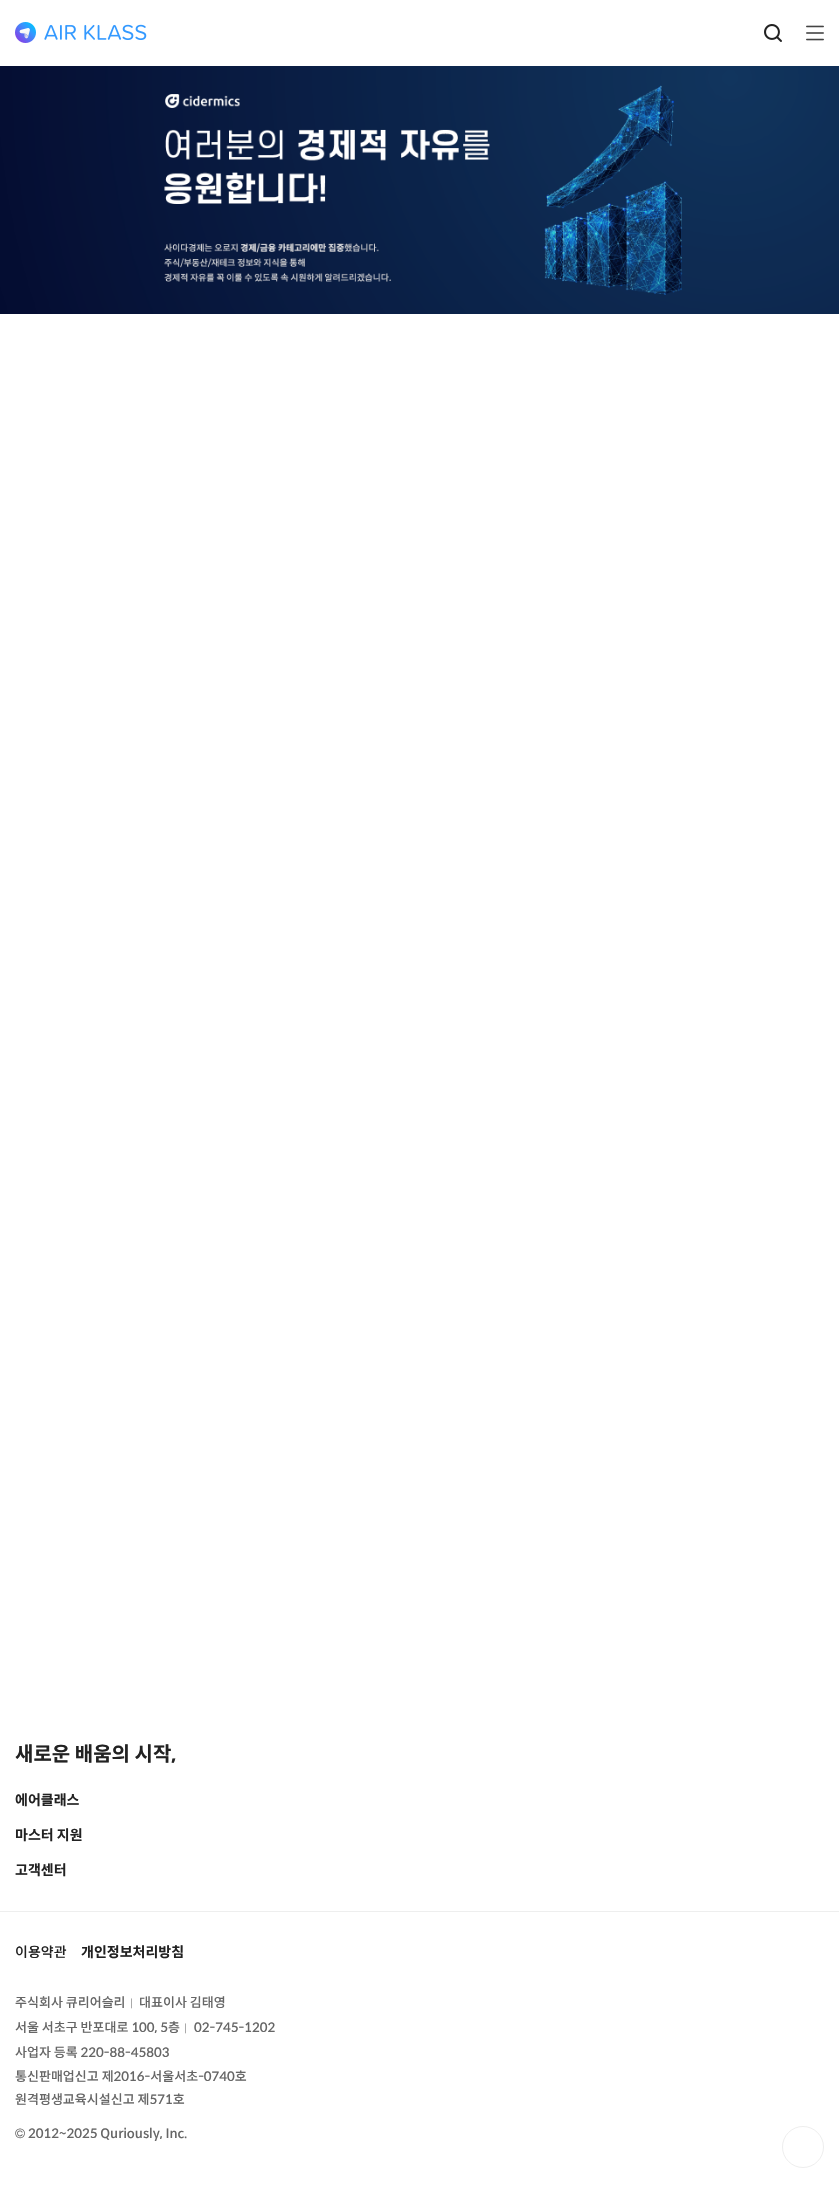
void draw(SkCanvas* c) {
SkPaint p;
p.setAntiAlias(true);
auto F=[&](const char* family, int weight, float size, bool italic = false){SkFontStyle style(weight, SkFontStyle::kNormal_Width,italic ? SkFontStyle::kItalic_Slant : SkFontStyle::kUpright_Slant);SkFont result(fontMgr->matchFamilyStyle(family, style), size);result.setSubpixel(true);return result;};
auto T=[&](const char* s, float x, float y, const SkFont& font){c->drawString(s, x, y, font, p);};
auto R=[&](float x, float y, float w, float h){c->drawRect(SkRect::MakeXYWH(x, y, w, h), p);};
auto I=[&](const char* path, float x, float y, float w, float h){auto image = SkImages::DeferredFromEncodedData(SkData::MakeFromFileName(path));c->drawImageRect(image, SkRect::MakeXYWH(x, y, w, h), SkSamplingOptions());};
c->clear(0xffffffff);
I("1.png",15,22,132,21);
I("2.png",764,24,18,18);
I("3.png",806,25,18,16);
I("4.png",0,66,839,248);
auto f1 = F("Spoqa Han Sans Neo",700,20);
p.setColor(0xff222222);
T("새로운 배움의 시작,",15,1761,f1);
auto f2 = F("Spoqa Han Sans Neo",700,14);
T("에어클래스",15,1805,f2);
T("마스터 지원",15,1840,f2);
T("고객센터",15,1875,f2);
p.setColor(0xffeeeeee);
R(0,1911,839,1);
auto f3 = F("Spoqa Han Sans Neo",500,14);
p.setColor(0xff222222);
T("이용약관",15,1957,f3);
T("개인정보처리방침",81,1957,f2);
auto f4 = F("Spoqa Han Sans Neo",500,13);
p.setColor(0xff666666);
T("주식회사 큐리어슬리",15,2007,f4);
auto f5 = F("Spoqa Han Sans Neo",500,10);
p.setColor(0xff999999);
T("|",130,2007,f5);
p.setColor(0xff666666);
T("대표이사 김태영",139,2007,f4);
T("서울 서초구 반포대로 100, 5층",15,2032,f4);
p.setColor(0xff999999);
T("|",184,2032,f5);
p.setColor(0xff666666);
T("02-745-1202",194,2032,f4);
T("사업자 등록 220-88-45803",15,2057,f4);
T("통신판매업신고 제2016-서울서초-0740호",15,2081,f4);
T("원격평생교육시설신고 제571호",15,2104,f4);
auto f6 = F("Dotum",400,13);
T("©",15,2138,f6);
T("2012~2025 Quriously, Inc.",28,2138,f4);
p.setStroke(true);
p.setStrokeWidth(1);
p.setColor(0xffeeeeee);
c->drawCircle(803,2147,20.5,p);
}
